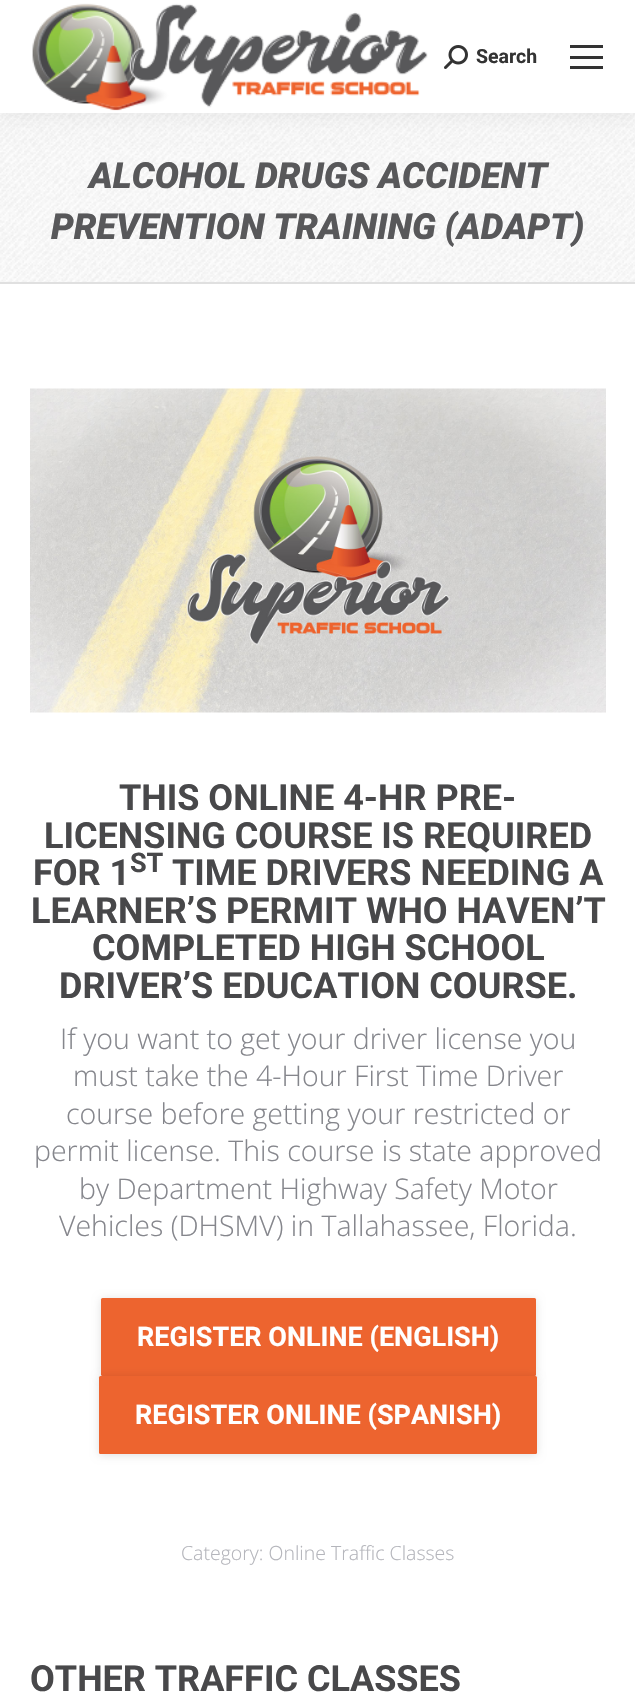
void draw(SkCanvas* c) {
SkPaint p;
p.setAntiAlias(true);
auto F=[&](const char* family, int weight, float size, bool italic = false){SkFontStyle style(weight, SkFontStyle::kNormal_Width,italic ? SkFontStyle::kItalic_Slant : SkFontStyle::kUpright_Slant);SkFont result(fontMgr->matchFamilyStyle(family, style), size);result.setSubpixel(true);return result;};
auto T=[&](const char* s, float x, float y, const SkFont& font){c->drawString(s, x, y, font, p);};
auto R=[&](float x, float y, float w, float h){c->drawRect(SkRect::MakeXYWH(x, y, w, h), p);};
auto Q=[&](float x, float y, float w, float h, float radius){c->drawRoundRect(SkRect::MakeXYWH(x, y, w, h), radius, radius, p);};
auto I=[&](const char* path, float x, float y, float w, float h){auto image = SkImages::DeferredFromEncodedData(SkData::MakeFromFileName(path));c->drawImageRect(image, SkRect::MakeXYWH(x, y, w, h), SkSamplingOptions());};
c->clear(0xffffffff);
I("3.png",0,113,635,169);
p.setColor(0x12000000);
p.setMaskFilter(SkMaskFilter::MakeBlur(kNormal_SkBlurStyle, 11));
c->drawRect(SkRect::MakeXYWH(-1,-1,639,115),p);
p.setMaskFilter(nullptr);
p.setColor(0xffffffff);
R(0,0,635,113);
I("1.png",32,3,396,108);
I("2.png",444,45,24,24);
auto f1 = F("Roboto",700,19.5);
p.setColor(0xff333333);
T("Search",476,63,f1);
R(570,45,33,3);
R(570,56,33,3);
R(570,66,33,3);
p.setColor(0xffe0e0e0);
R(0,282,635,2);
auto f2 = F("Roboto",900,36,true);
p.setColor(0xff58585a);
T("ALCOHOL DRUGS ACCIDENT",89,188,f2);
T("PREVENTION TRAINING (ADAPT)",51,239,f2);
I("4.png",30,388,576,325);
auto f3 = F("Roboto",700,36);
p.setColor(0xff48484a);
T("THIS ONLINE 4-HR PRE-",119,810,f3);
T("LICENSING COURSE IS REQUIRED",44,848,f3);
T("FOR 1",33,885,f3);
auto f4 = F("Roboto",700,27);
T("ST",130,872,f4);
T("TIME DRIVERS NEEDING A",172,885,f3);
T("LEARNER’S PERMIT WHO HAVEN’T",31,923,f3);
T("COMPLETED HIGH SCHOOL",92,960,f3);
T("DRIVER’S EDUCATION COURSE.",59,998,f3);
auto f5 = F("Open Sans",300,28.5);
p.setColor(0xff85868c);
T("If you want to get your driver license you",60,1049,f5);
T("must take the 4-Hour First Time Driver",73,1086,f5);
T("course before getting your restricted or",66,1124,f5);
T("permit license. This course is state approved",34,1161,f5);
T("by Department Highway Safety Motor",79,1199,f5);
T("Vehicles (DHSMV) in Tallahassee, Florida.",59,1236,f5);
p.setColor(0x1f000000);
p.setMaskFilter(SkMaskFilter::MakeBlur(kNormal_SkBlurStyle, 4.5));
c->drawRoundRect(SkRect::MakeXYWH(101,1299,435,78),1.5,1.5,p);
p.setMaskFilter(nullptr);
p.setColor(0xffed642f);
Q(101,1298,435,78,1.5);
p.setColor(0xffffffff);
T("REGISTER ONLINE (ENGLISH)",137,1346,f4);
p.setColor(0x1f000000);
p.setMaskFilter(SkMaskFilter::MakeBlur(kNormal_SkBlurStyle, 4.5));
c->drawRoundRect(SkRect::MakeXYWH(99,1377,438,78),1.5,1.5,p);
p.setMaskFilter(nullptr);
p.setColor(0xffed642f);
Q(99,1376,438,78,1.5);
p.setColor(0xffffffff);
T("REGISTER ONLINE (SPANISH)",135,1424,f4);
auto f6 = F("Open Sans",300,19.5);
p.setColor(0xffb4b5bb);
T("Category: Online Traffic Classes",181,1560,f6);
p.setColor(0xff48484a);
T("OTHER TRAFFIC CLASSES",30,1691,f3);
}
